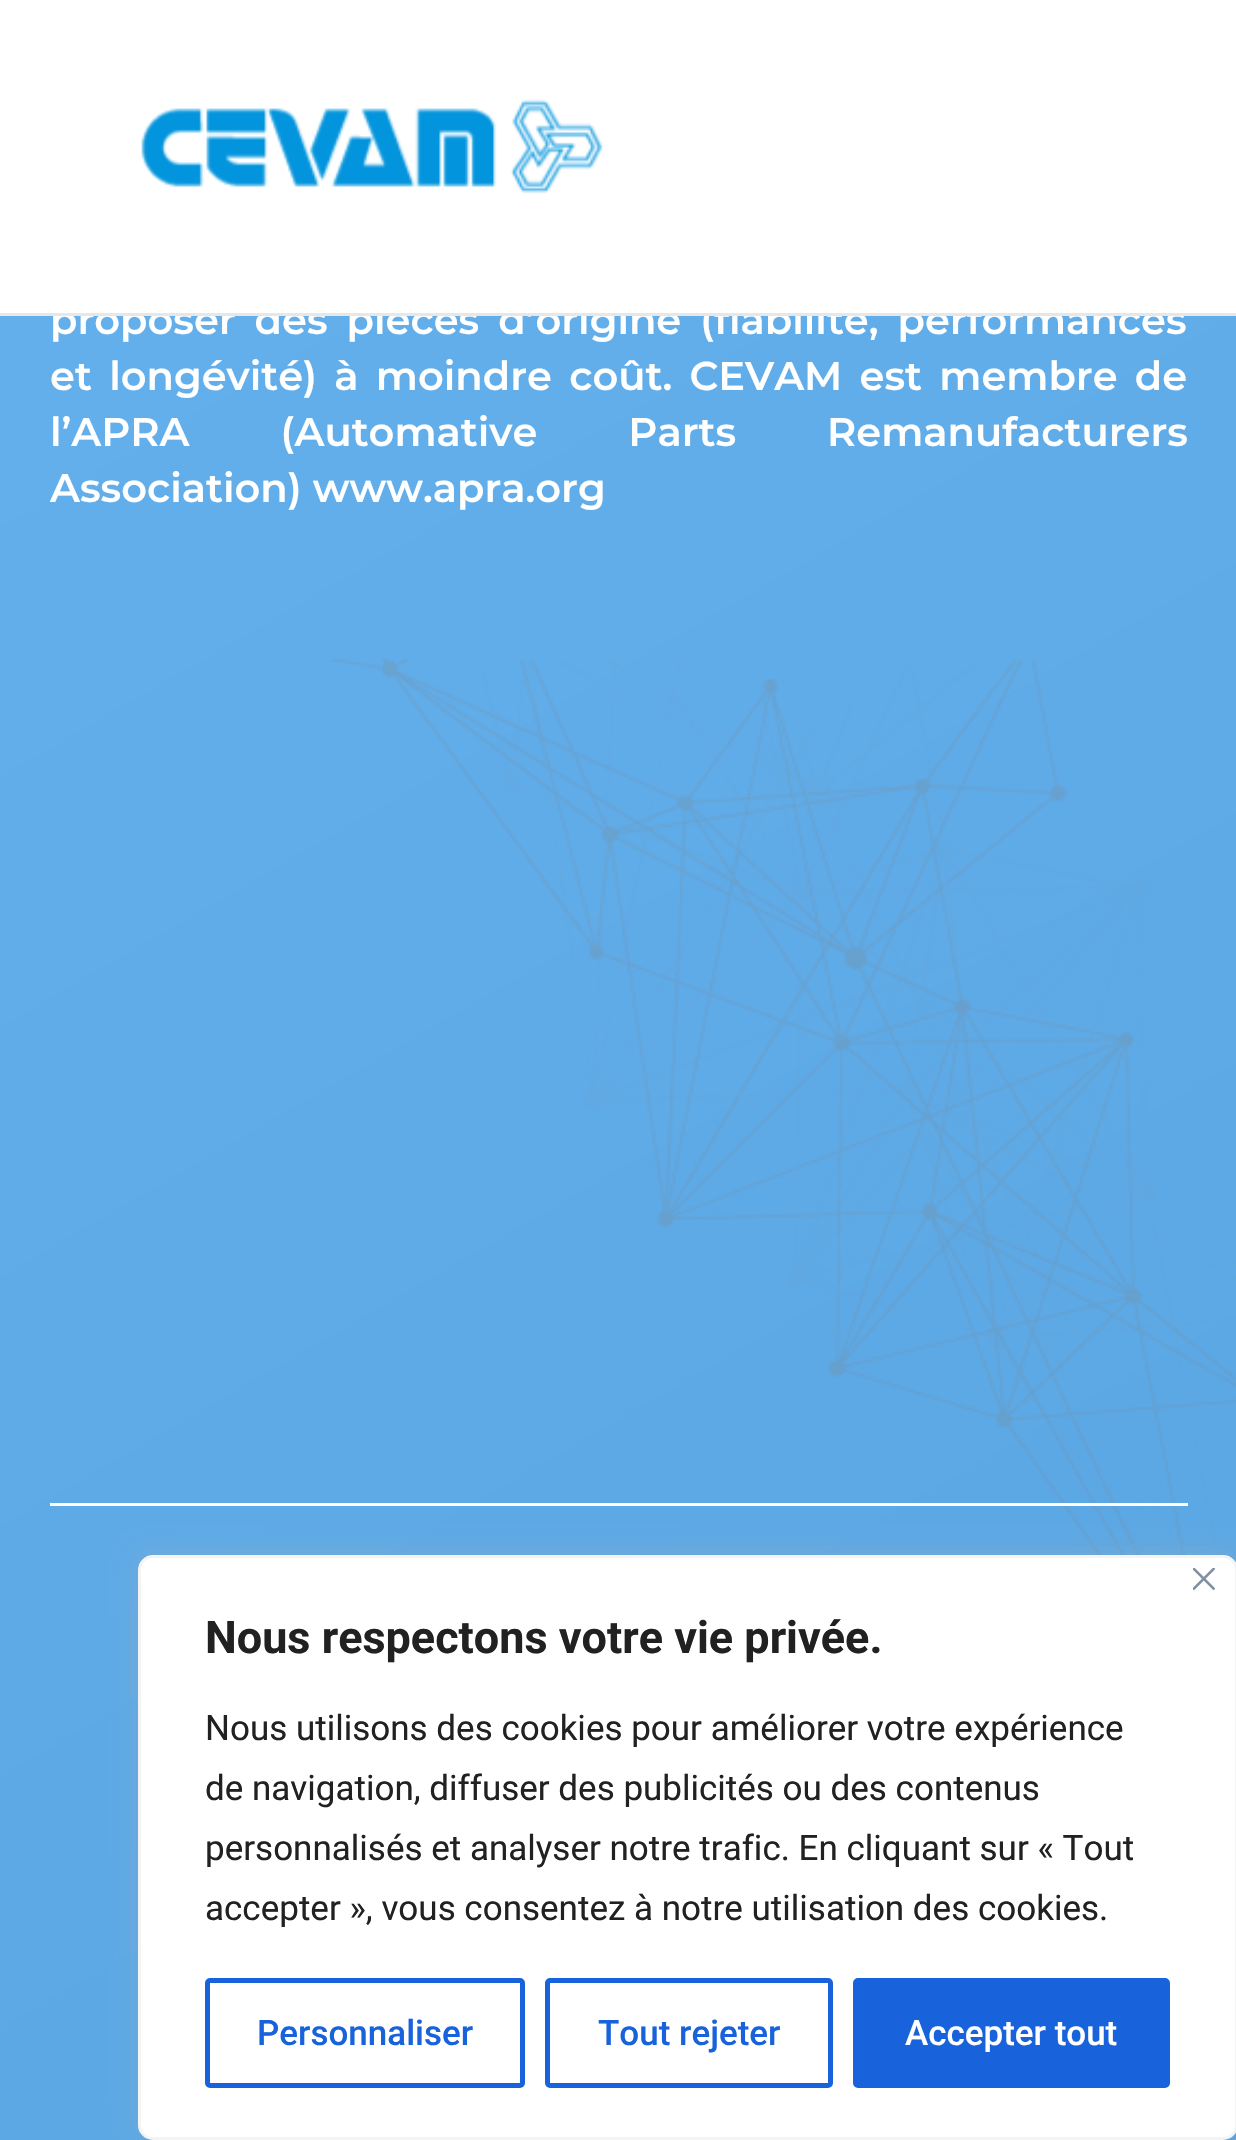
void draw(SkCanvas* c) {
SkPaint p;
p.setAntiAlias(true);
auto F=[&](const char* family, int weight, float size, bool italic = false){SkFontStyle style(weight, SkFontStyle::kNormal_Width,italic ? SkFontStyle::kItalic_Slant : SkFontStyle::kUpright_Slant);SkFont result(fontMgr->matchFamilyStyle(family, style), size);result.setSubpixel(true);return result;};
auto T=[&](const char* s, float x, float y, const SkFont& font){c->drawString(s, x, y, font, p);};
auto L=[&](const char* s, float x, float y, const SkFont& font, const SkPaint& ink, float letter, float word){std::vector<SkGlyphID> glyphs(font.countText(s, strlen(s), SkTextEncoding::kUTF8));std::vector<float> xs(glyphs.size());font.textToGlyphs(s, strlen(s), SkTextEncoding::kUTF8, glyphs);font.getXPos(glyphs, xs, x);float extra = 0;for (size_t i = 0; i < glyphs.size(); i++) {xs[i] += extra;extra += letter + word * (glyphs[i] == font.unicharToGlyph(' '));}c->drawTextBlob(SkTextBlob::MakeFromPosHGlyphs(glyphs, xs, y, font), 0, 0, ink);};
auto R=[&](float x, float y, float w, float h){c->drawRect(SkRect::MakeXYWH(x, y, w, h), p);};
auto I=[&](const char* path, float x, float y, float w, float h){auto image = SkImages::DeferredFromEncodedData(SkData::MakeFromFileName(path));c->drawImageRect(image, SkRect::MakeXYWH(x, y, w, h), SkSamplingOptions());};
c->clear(0xffffffff);
{
const SkColor colors[] = {0xff6ab6f3,0xff4b97d3};
const float stops[] = {0,1};
const SkPoint ends[] = {{-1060,-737}, {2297,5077}};
p.setShader(SkGradientShader::MakeLinear(ends, colors, stops, 2, SkTileMode::kClamp));
p.setAlpha(255);
}
R(0,316,1236,1824);
auto f1 = F("Montserrat",600,40);
p.setShader(nullptr);
p.setColor(0xffffffff);
L("proposer des pièces d’origine (fiabilité, performances",50,334,f1,p,0,8);
p.setColor(0xffe7e7e7);
R(0,313,1236,3);
I("1.png",141,99,463,95);
p.setColor(0xffffffff);
L("et longévité) à moindre coût. CEVAM est membre de",50,390,f1,p,0,6.25);
L("l’APRA (Automative Parts Remanufacturers",50,446,f1,p,0,80);
T("Association) www.apra.org",50,502,f1);
I("2.png",329,659,907,1481);
R(50,1503,1138,3);
p.setColor(0x4dacabab);
p.setMaskFilter(SkMaskFilter::MakeBlur(kNormal_SkBlurStyle, 12.5));
c->drawRoundRect(SkRect::MakeXYWH(138,1553,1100,585),15,15,p);
p.setMaskFilter(nullptr);
p.setColor(0xffffffff);
c->drawRoundRect(SkRect::MakeXYWH(139.5,1556.5,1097,582),13.5,13.5,p);
p.setStroke(true);
p.setStrokeWidth(3);
p.setColor(0xfff4f4f4);
c->drawRoundRect(SkRect::MakeXYWH(139.5,1556.5,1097,582),13.5,13.5,p);
I("3.png",1193,1568,22,22);
auto f2 = F("Roboto",700,45);
p.setStroke(false);
p.setColor(0xff212121);
T("Nous respectons votre vie privée.",205,1653,f2);
auto f3 = F("Roboto",400,35);
T("Nous utilisons des cookies pour améliorer votre expérience",205,1740,f3);
T("de navigation, diffuser des publicités ou des contenus",205,1800,f3);
T("personnalisés et analyser notre trafic. En cliquant sur « Tout",205,1860,f3);
T("accepter », vous consentez à notre utilisation des cookies.",205,1920,f3);
p.setStroke(true);
p.setStrokeWidth(5);
p.setColor(0xff1863dc);
c->drawRoundRect(SkRect::MakeXYWH(207.5,1980.5,315,105),2.5,2.5,p);
auto f4 = F("Roboto",500,35);
p.setStroke(false);
T("Personnaliser",257,2045,f4);
p.setStroke(true);
c->drawRoundRect(SkRect::MakeXYWH(547.5,1980.5,283,105),2.5,2.5,p);
p.setStroke(false);
T("Tout rejeter",598,2045,f4);
c->drawRoundRect(SkRect::MakeXYWH(855.5,1980.5,312,105),2.5,2.5,p);
p.setStroke(true);
c->drawRoundRect(SkRect::MakeXYWH(855.5,1980.5,312,105),2.5,2.5,p);
p.setStroke(false);
p.setColor(0xffffffff);
T("Accepter tout",905,2045,f4);
}
